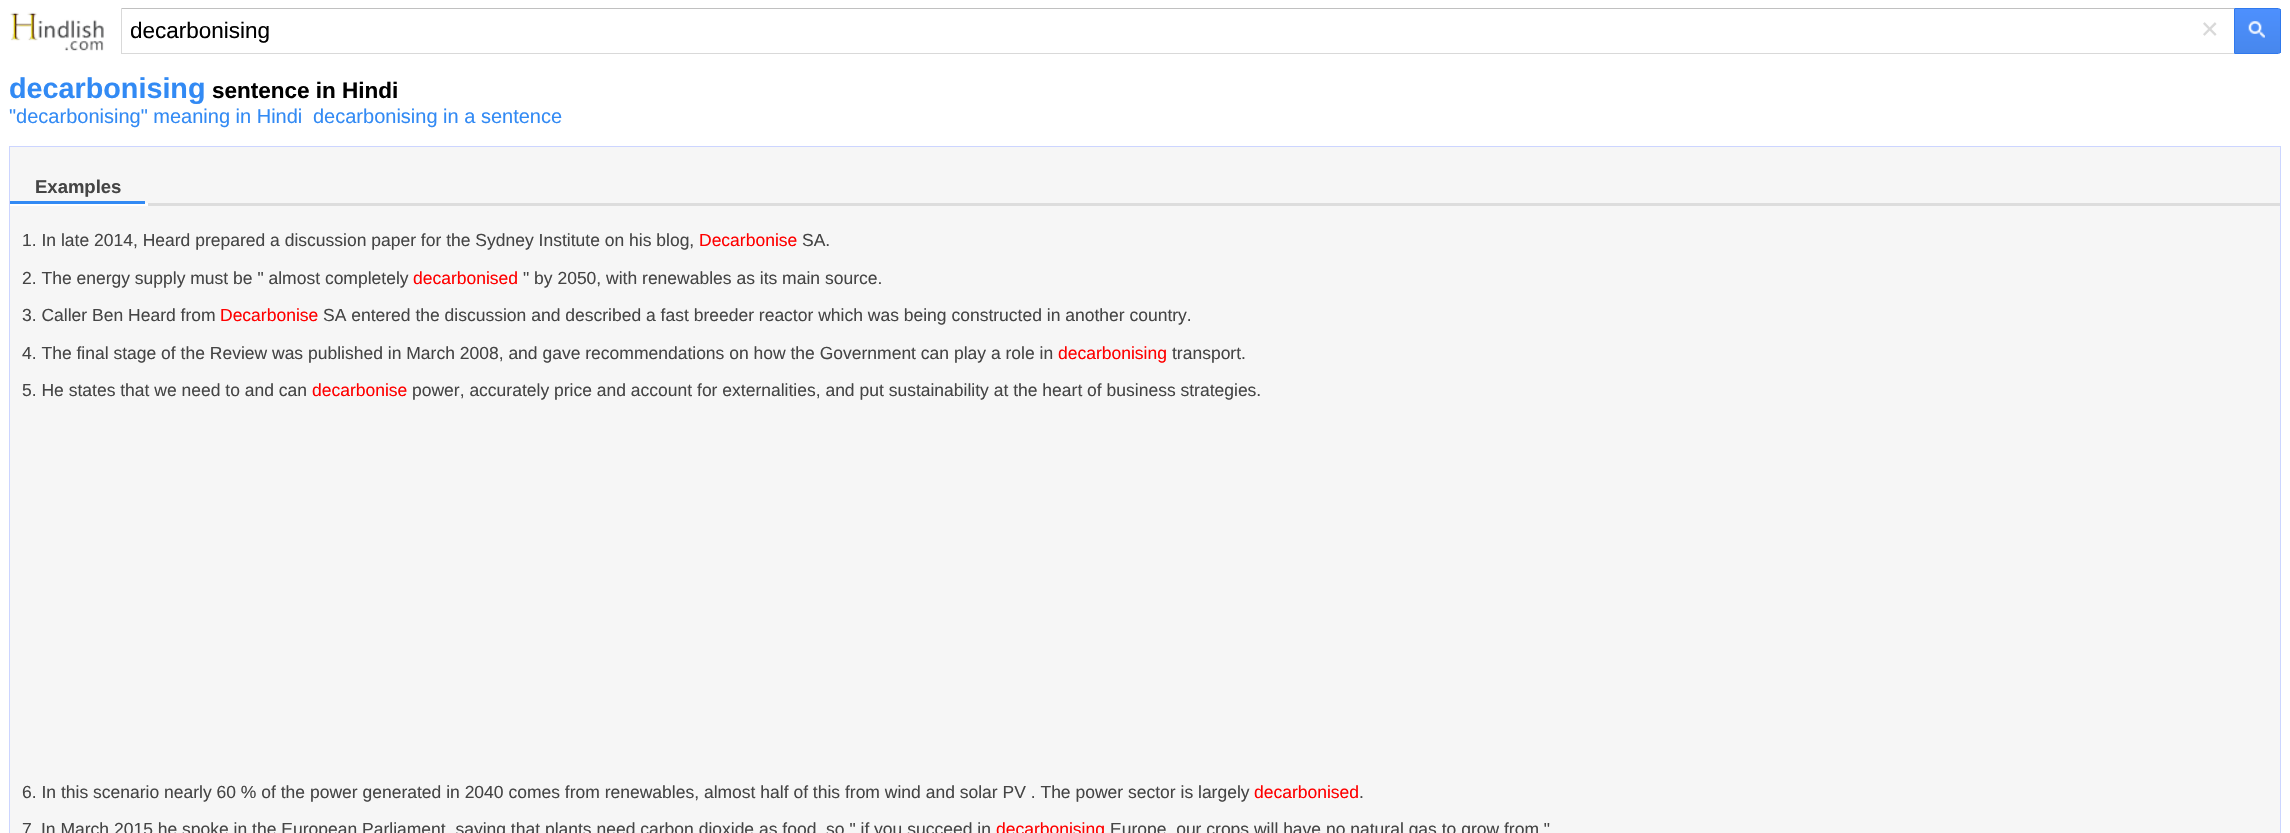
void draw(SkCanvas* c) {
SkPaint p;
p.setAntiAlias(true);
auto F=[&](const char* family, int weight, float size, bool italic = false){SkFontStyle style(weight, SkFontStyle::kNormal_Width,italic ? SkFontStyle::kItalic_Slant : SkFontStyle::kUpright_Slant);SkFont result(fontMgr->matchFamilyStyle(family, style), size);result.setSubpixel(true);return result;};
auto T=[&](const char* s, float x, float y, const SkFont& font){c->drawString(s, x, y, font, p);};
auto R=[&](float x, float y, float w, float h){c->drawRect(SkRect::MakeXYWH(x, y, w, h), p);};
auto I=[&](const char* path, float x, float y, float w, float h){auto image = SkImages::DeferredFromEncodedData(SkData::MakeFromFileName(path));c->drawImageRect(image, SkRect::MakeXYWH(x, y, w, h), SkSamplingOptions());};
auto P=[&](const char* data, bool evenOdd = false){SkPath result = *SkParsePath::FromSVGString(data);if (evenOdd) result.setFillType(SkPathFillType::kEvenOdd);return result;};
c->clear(0xffffffff);
I("1.png",10,12,94,39);
p.setColor(0xffc0c0c0);
R(121,8,2113,1);
p.setColor(0xffd9d9d9);
R(121,53,2113,1);
R(121,8,1,46);
auto f1 = F("Liberation Sans",400,22.5);
p.setColor(0xff000000);
T("decarbonising",130,38,f1);
auto f2 = F("Liberation Sans",400,30);
p.setColor(0xffd9d9d9);
T("×",2201,39,f2);
{
const SkColor colors[] = {0xff4d90fe,0xff4787ed};
const float stops[] = {0,1};
const SkPoint ends[] = {{2235,9}, {2235,53}};
p.setShader(SkGradientShader::MakeLinear(ends, colors, stops, 2, SkTileMode::kClamp));
p.setAlpha(255);
}
R(2235,9,46,44);
p.setStroke(true);
p.setStrokeWidth(1);
p.setShader(nullptr);
p.setColor(0xff3079ed);
c->drawPath(P("M2234.5 8.5h44c1 0 2 1 2 2v41c0 1-1 2-2 2h-44z"),p);
I("2.png",2248,21,17,17);
auto f3 = F("Liberation Sans",700,28.75);
p.setStroke(false);
p.setColor(0xff328af4);
T("decarbonising",9,98,f3);
auto f4 = F("Liberation Sans",700,22.5);
p.setColor(0xff000000);
T("sentence in Hindi",212,98,f4);
auto f5 = F("Liberation Sans",400,20);
p.setColor(0xff328af4);
T("\"decarbonising\" meaning in Hindi",9,123,f5);
T("decarbonising in a sentence",313,123,f5);
p.setColor(0xfff6f6f6);
c->drawRect(SkRect::MakeXYWH(9.5,146.5,2271,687),p);
p.setStroke(true);
p.setColor(0xffccd5ff);
c->drawRect(SkRect::MakeXYWH(9.5,146.5,2271,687),p);
p.setStroke(false);
p.setColor(0xffdddddd);
R(148,203,2132,3);
p.setColor(0xffffffff);
R(10,203,138,3);
p.setColor(0xff328af4);
R(10,201,135,3);
auto f6 = F("Liberation Sans",700,18.5);
p.setColor(0xff454545);
T("Examples",35,193,f6);
auto f7 = F("Liberation Sans",400,17.5);
T("1. In late 2014, Heard prepared a discussion paper for the Sydney Institute on his blog,",22,246,f7);
p.setColor(0xffff0000);
T("Decarbonise",699,246,f7);
p.setColor(0xff454545);
T("SA.",802,246,f7);
T("2. The energy supply must be \" almost completely",22,284,f7);
p.setColor(0xffff0000);
T("decarbonised",413,284,f7);
p.setColor(0xff454545);
T("\" by 2050, with renewables as its main source.",523,284,f7);
T("3. Caller Ben Heard from",22,321,f7);
p.setColor(0xffff0000);
T("Decarbonise",220,321,f7);
p.setColor(0xff454545);
T("SA entered the discussion and described a fast breeder reactor which was being constructed in another country.",323,321,f7);
T("4. The final stage of the Review was published in March 2008, and gave recommendations on how the Government can play a role in",22,359,f7);
p.setColor(0xffff0000);
T("decarbonising",1058,359,f7);
p.setColor(0xff454545);
T("transport.",1172,359,f7);
T("5. He states that we need to and can",22,396,f7);
p.setColor(0xffff0000);
T("decarbonise",312,396,f7);
p.setColor(0xff454545);
T("power, accurately price and account for externalities, and put sustainability at the heart of business strategies.",412,396,f7);
T("6. In this scenario nearly 60 % of the power generated in 2040 comes from renewables, almost half of this from wind and solar PV . The power sector is largely",22,798,f7);
p.setColor(0xffff0000);
T("decarbonised",1254,798,f7);
p.setColor(0xff454545);
T(".",1359,798,f7);
T("7",22,835,f7);
T("In March 2015 he spoke in the European Parliament, saying that plants need carbon dioxide as food, so \" if you succeed in",41,835,f7);
p.setColor(0xffff0000);
T("decarbonising",996,835,f7);
p.setColor(0xff454545);
T("Europe, our crops will have no natural gas to grow from \"",1110,835,f7);
}
